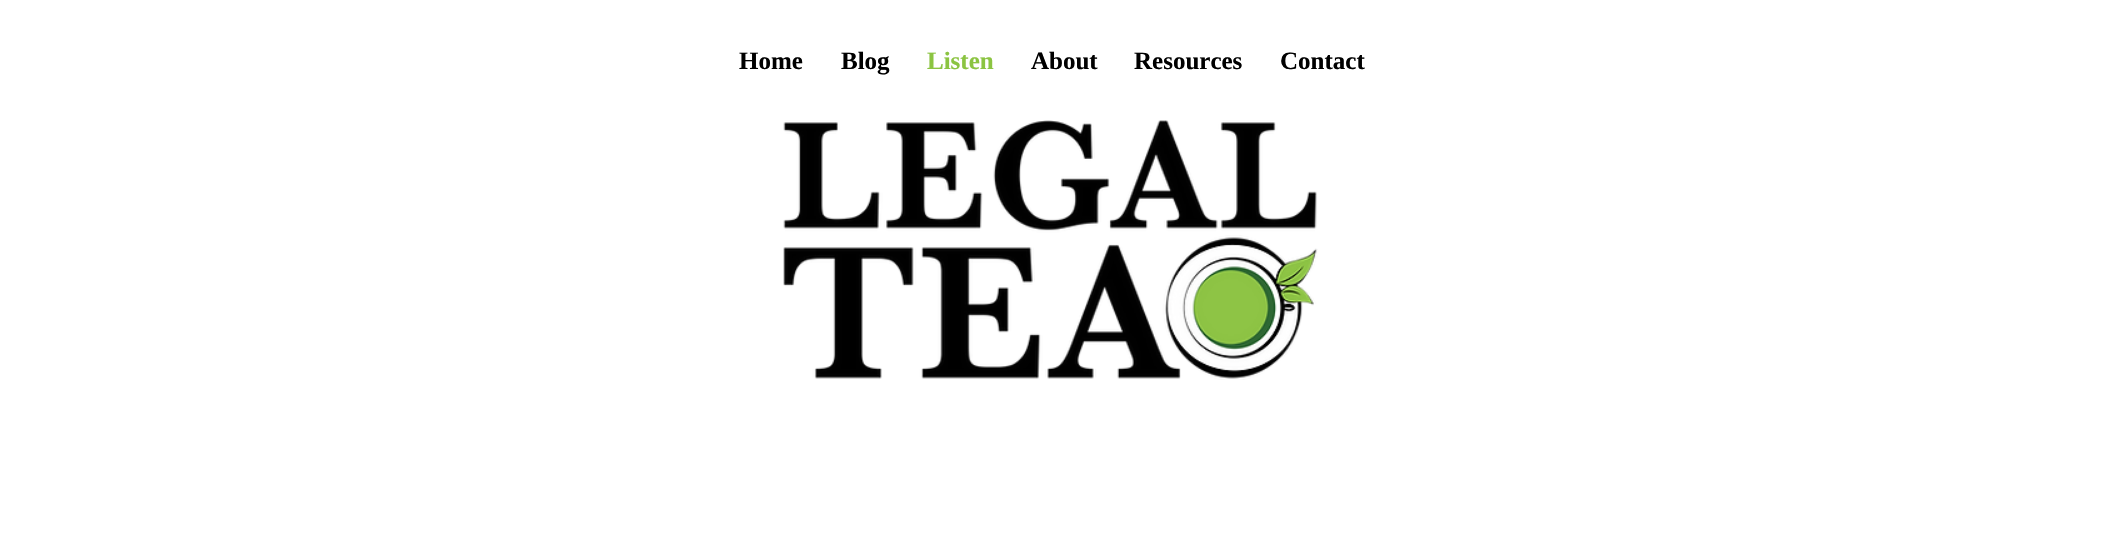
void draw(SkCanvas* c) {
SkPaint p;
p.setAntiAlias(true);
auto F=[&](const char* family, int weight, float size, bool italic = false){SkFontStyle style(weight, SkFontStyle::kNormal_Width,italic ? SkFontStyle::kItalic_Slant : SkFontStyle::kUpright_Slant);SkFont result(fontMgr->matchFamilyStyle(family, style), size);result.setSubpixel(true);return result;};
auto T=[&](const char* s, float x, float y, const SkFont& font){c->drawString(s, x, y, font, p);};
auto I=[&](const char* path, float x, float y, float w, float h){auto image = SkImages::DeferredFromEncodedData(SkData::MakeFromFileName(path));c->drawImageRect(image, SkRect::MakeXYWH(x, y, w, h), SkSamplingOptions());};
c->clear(0xffffffff);
auto f1 = F("Liberation Serif",700,25);
p.setColor(0xff000000);
T("Home",739,69,f1);
T("Blog",841,69,f1);
p.setColor(0xff8bc441);
T("Listen",927,69,f1);
p.setColor(0xff000000);
T("About",1031,69,f1);
T("Resources",1134,69,f1);
T("Contact",1280,69,f1);
I("1.png",783,120,535,260);
}
